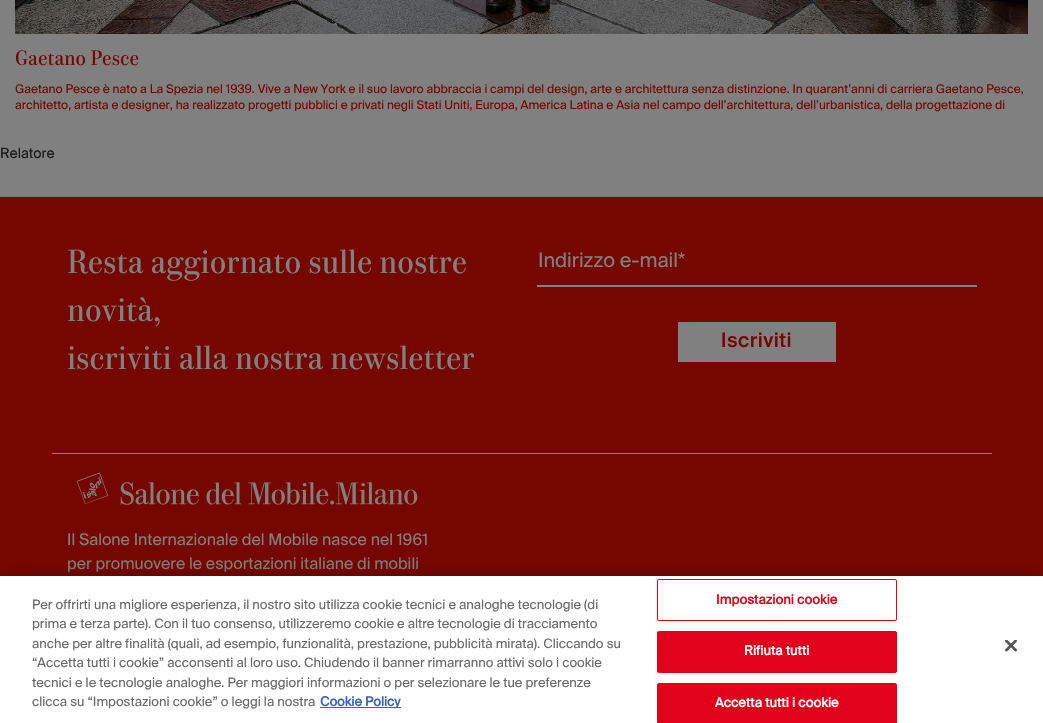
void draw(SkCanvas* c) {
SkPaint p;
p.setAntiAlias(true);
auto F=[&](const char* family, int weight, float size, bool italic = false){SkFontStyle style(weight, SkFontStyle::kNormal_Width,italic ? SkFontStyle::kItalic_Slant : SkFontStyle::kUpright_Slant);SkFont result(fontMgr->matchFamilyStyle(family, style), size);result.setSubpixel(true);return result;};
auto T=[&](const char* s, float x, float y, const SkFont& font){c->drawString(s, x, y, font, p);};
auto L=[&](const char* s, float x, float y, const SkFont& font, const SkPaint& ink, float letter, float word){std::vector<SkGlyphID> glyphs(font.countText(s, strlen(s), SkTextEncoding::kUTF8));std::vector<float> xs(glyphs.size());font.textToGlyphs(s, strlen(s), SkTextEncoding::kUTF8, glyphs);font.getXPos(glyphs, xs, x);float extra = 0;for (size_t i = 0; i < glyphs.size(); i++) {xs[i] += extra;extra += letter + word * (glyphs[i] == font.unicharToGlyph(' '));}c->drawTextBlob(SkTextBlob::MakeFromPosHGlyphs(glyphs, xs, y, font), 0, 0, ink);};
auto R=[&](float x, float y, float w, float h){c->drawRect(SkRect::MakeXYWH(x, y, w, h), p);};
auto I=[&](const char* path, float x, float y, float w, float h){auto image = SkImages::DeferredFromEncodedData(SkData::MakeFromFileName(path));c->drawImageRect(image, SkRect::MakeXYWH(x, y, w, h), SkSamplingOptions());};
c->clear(0xff808080);
I("1.png",15,0,1013,34);
auto f1 = F("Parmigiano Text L",400,20);
p.setColor(0xff760700);
T("Gaetano Pesce",15,65,f1);
auto f2 = F("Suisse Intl",400,12);
T("Gaetano Pesce è nato a La Spezia nel 1939. Vive a New York e il suo lavoro abbraccia i campi del design, arte e architettura senza distinzione. In quarant’anni di carriera Gaetano Pesce,",15,93,f2);
T("architetto, artista e designer, ha realizzato progetti pubblici e privati negli Stati Uniti, Europa, America Latina e Asia nel campo dell’architettura, dell’urbanistica, della progettazione di",15,109,f2);
auto f3 = F("Suisse Intl",400,14);
p.setColor(0xff1a1a1a);
T("Relatore",0,158,f3);
p.setColor(0xff760700);
R(0,197,1043,379);
p.setColor(0xff737373);
R(0,196,1043,1);
auto f4 = F("Parmigiano Text L",400,32);
p.setColor(0xff808080);
T("Resta aggiornato sulle nostre",67,273,f4);
T("novità,",67,321,f4);
T("iscriviti alla nostra newsletter",67,369,f4);
auto f5 = F("Suisse Intl",400,20);
T("Indirizzo e-mail*",538,267,f5);
R(537,285,440,2);
R(678,322,158,40);
auto f6 = F("Suisse Intl",500,20);
p.setColor(0xff760700);
L("Iscriviti",721,347,f6,p,.5,0);
p.setColor(0xff808080);
R(52,453,940,1);
I("2.png",76,472,342,33);
auto f7 = F("Suisse Intl",400,16);
T("Il Salone Internazionale del Mobile nasce nel 1961",67,545,f7);
T("per promuovere le esportazioni italiane di mobili",67,569,f7);
p.setColor(0x33000000);
p.setMaskFilter(SkMaskFilter::MakeBlur(kNormal_SkBlurStyle, 9));
c->drawRect(SkRect::MakeXYWH(0,576,1043,147),p);
p.setMaskFilter(nullptr);
p.setColor(0xffffffff);
R(0,576,1043,147);
auto f8 = F("Suisse Intl",400,13);
p.setColor(0xff696969);
T("Per offrirti una migliore esperienza, il nostro sito utilizza cookie tecnici e analoghe tecnologie (di",32,609,f8);
T("prima e terza parte). Con il tuo consenso, utilizzeremo cookie e altre tecnologie di tracciamento",32,628,f8);
T("anche per altre finalità (quali, ad esempio, funzionalità, prestazione, pubblicità mirata). Cliccando su",32,648,f8);
T("“Accetta tutti i cookie” acconsenti al loro uso. Chiudendo il banner rimarranno attivi solo i cookie",32,667,f8);
T("tecnici e le tecnologie analoghe. Per maggiori informazioni o per selezionare le tue preferenze",32,687,f8);
T("clicca su “Impostazioni cookie” o leggi la nostra",32,706,f8);
p.setColor(0xff3860be);
R(320,707,81,1);
auto f9 = F("Suisse Intl",700,13);
T("Cookie Policy",320,706,f9);
p.setStroke(true);
p.setStrokeWidth(1);
p.setColor(0xffe2011b);
c->drawRoundRect(SkRect::MakeXYWH(657.5,579.5,239,41),1.5,1.5,p);
p.setStroke(false);
L("Impostazioni cookie",716,604,f9,p,.1,0);
c->drawRoundRect(SkRect::MakeXYWH(657.5,631.5,239,41),1.5,1.5,p);
p.setStroke(true);
c->drawRoundRect(SkRect::MakeXYWH(657.5,631.5,239,41),1.5,1.5,p);
p.setStroke(false);
p.setColor(0xffffffff);
L("Rifiuta tutti",744,655,f9,p,.1,0);
p.setColor(0xffe2011b);
c->drawRoundRect(SkRect::MakeXYWH(657.5,683.5,239,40),1.5,1.5,p);
p.setStroke(true);
c->drawRoundRect(SkRect::MakeXYWH(657.5,683.5,239,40),1.5,1.5,p);
p.setStroke(false);
p.setColor(0xffffffff);
L("Accetta tutti i cookie",715,707,f9,p,.1,0);
I("3.png",1005,640,12,12);
}
